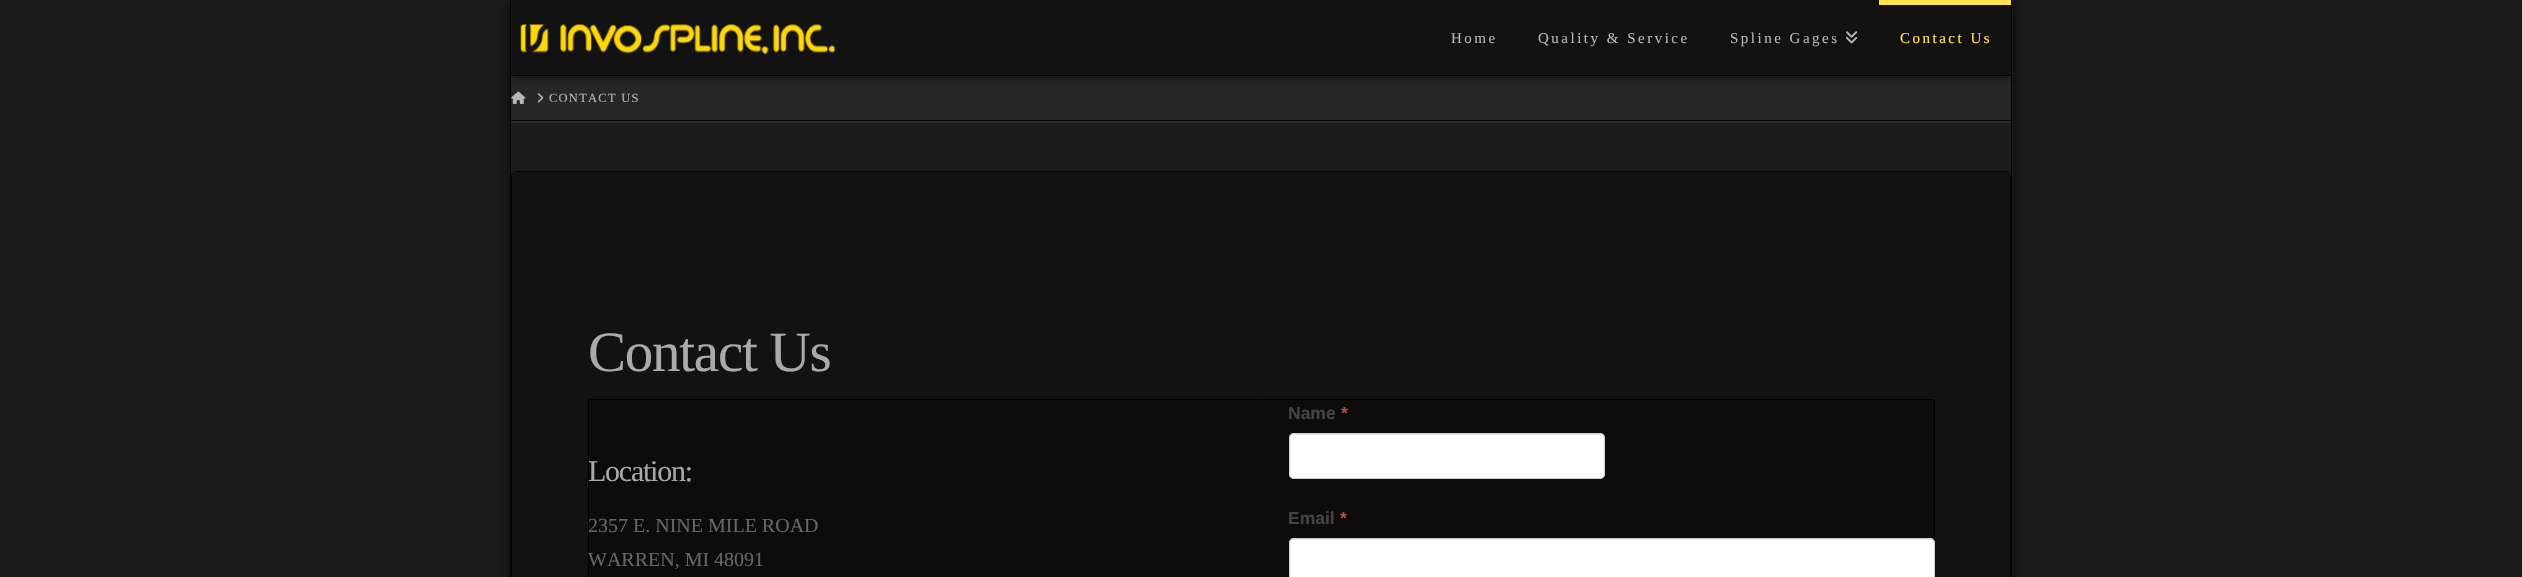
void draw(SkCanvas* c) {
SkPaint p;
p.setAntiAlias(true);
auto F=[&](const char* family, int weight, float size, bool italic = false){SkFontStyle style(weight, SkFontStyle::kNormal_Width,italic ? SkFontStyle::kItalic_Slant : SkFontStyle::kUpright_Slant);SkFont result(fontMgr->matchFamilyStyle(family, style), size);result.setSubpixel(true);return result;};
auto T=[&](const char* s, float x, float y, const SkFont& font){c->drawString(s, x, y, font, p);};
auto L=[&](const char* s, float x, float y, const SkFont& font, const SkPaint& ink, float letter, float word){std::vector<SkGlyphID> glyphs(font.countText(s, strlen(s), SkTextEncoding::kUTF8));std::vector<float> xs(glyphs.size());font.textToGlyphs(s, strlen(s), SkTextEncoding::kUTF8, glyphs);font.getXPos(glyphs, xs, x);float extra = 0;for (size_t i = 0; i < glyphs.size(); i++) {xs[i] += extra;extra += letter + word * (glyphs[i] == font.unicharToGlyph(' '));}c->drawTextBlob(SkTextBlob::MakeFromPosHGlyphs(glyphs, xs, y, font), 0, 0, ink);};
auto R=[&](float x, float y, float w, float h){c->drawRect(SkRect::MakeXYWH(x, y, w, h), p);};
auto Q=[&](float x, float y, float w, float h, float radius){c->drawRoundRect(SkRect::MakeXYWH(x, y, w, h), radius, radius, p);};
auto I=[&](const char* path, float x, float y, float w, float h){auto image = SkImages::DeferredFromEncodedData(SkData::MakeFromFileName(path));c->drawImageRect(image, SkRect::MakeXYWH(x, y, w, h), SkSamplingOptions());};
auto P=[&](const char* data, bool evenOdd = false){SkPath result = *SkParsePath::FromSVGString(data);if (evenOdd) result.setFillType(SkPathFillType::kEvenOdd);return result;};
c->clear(0xff1a1a1a);
p.setColor(0x94000000);
p.setMaskFilter(SkMaskFilter::MakeBlur(kNormal_SkBlurStyle, 5));
c->drawRect(SkRect::MakeXYWH(510,0,1503,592),p);
p.setMaskFilter(nullptr);
p.setColor(0xff1c1c1c);
R(511,0,1502,577);
p.setColor(0xff010101);
R(2011,0,1,577);
R(510,0,1,577);
p.setColor(0xff272727);
R(511,76,1500,44);
p.setColor(0x78000000);
p.setMaskFilter(SkMaskFilter::MakeBlur(kNormal_SkBlurStyle, 3.5));
c->drawRect(SkRect::MakeXYWH(511,3,1500,76),p);
p.setMaskFilter(nullptr);
p.setColor(0xff121212);
R(511,0,1500,75);
p.setColor(0xff000000);
R(511,75,1500,1);
I("1.png",520,24,316,31);
auto f1 = F("Liberation Serif",400,15);
p.setColor(0xffb7b7b7);
L("Home",1451,43,f1,p,2.5,0);
L("Quality & Service",1538,43,f1,p,2.5,0);
L("Spline Gages",1730,43,f1,p,2.5,0);
I("2.png",1846,31,12,13);
p.setColor(0xffffe24c);
R(1879,0,132,5);
L("Contact Us",1900,43,f1,p,2.5,0);
p.setColor(0xff2b2b2b);
c->drawPath(P("M511 78v45h1500v-2h-1500z"),p);
p.setColor(0xff070707);
R(511,120,1500,1);
I("3.png",511,91,15,14);
I("4.png",537,93,7,10);
auto f2 = F("Liberation Serif",400,12.5);
p.setColor(0xffb7b7b7);
L("CONTACT US",549,102,f2,p,1.25,0);
p.setColor(0xff121212);
c->drawRoundRect(SkRect::MakeXYWH(511.5,171.5,1499,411),4.5,4.5,p);
p.setStroke(true);
p.setStrokeWidth(1);
p.setColor(0xff050505);
c->drawRoundRect(SkRect::MakeXYWH(511.5,171.5,1499,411),4.5,4.5,p);
auto f3 = F("Liberation Serif",400,57);
p.setStroke(false);
p.setColor(0xffaaaaaa);
L("Contact Us",588,371,f3,p,-1.25,0);
p.setColor(0xff0c0c0c);
c->drawRoundRect(SkRect::MakeXYWH(588.5,399.5,1346,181),2,2,p);
p.setStroke(true);
p.setColor(0xff000000);
c->drawRoundRect(SkRect::MakeXYWH(588.5,399.5,1346,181),2,2,p);
auto f4 = F("Liberation Serif",400,30);
p.setStroke(false);
p.setColor(0xffaaaaaa);
L("Location:",588,481,f4,p,-1.25,0);
auto f5 = F("Liberation Serif",400,20);
p.setColor(0xff666666);
T("2357 E. NINE MILE ROAD",588,532,f5);
T("WARREN, MI 48091",588,566,f5);
auto f6 = F("Liberation Sans",700,17.5);
p.setColor(0xff444444);
T("Name",1288,419,f6);
p.setColor(0xffb94a48);
T("*",1341,419,f6);
p.setColor(0xffffffff);
Q(1289,433,316,46,5);
p.setColor(0xffececec);
c->drawPath(P("M1294 435h306c2 0 4 2 4 4v-1c0-2-2-4-4-4h-306c-2 0-4 2-4 4v1c0-2 2-4 4-4z"),p);
p.setStroke(true);
p.setColor(0xffcccccc);
c->drawRoundRect(SkRect::MakeXYWH(1289.5,433.5,315,45),4.5,4.5,p);
p.setStroke(false);
p.setColor(0xff444444);
T("Email",1288,524,f6);
p.setColor(0xffb94a48);
T("*",1340,524,f6);
p.setColor(0xffffffff);
Q(1289,538,646,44,5);
p.setColor(0xffececec);
c->drawPath(P("M1294 540h636c2 0 4 2 4 4c0-3-1-5-4-5h-636c-3 0-4 2-4 5c0-2 2-4 4-4z"),p);
p.setStroke(true);
p.setColor(0xffcccccc);
c->drawRoundRect(SkRect::MakeXYWH(1289.5,538.5,645,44),4.5,4.5,p);
}
